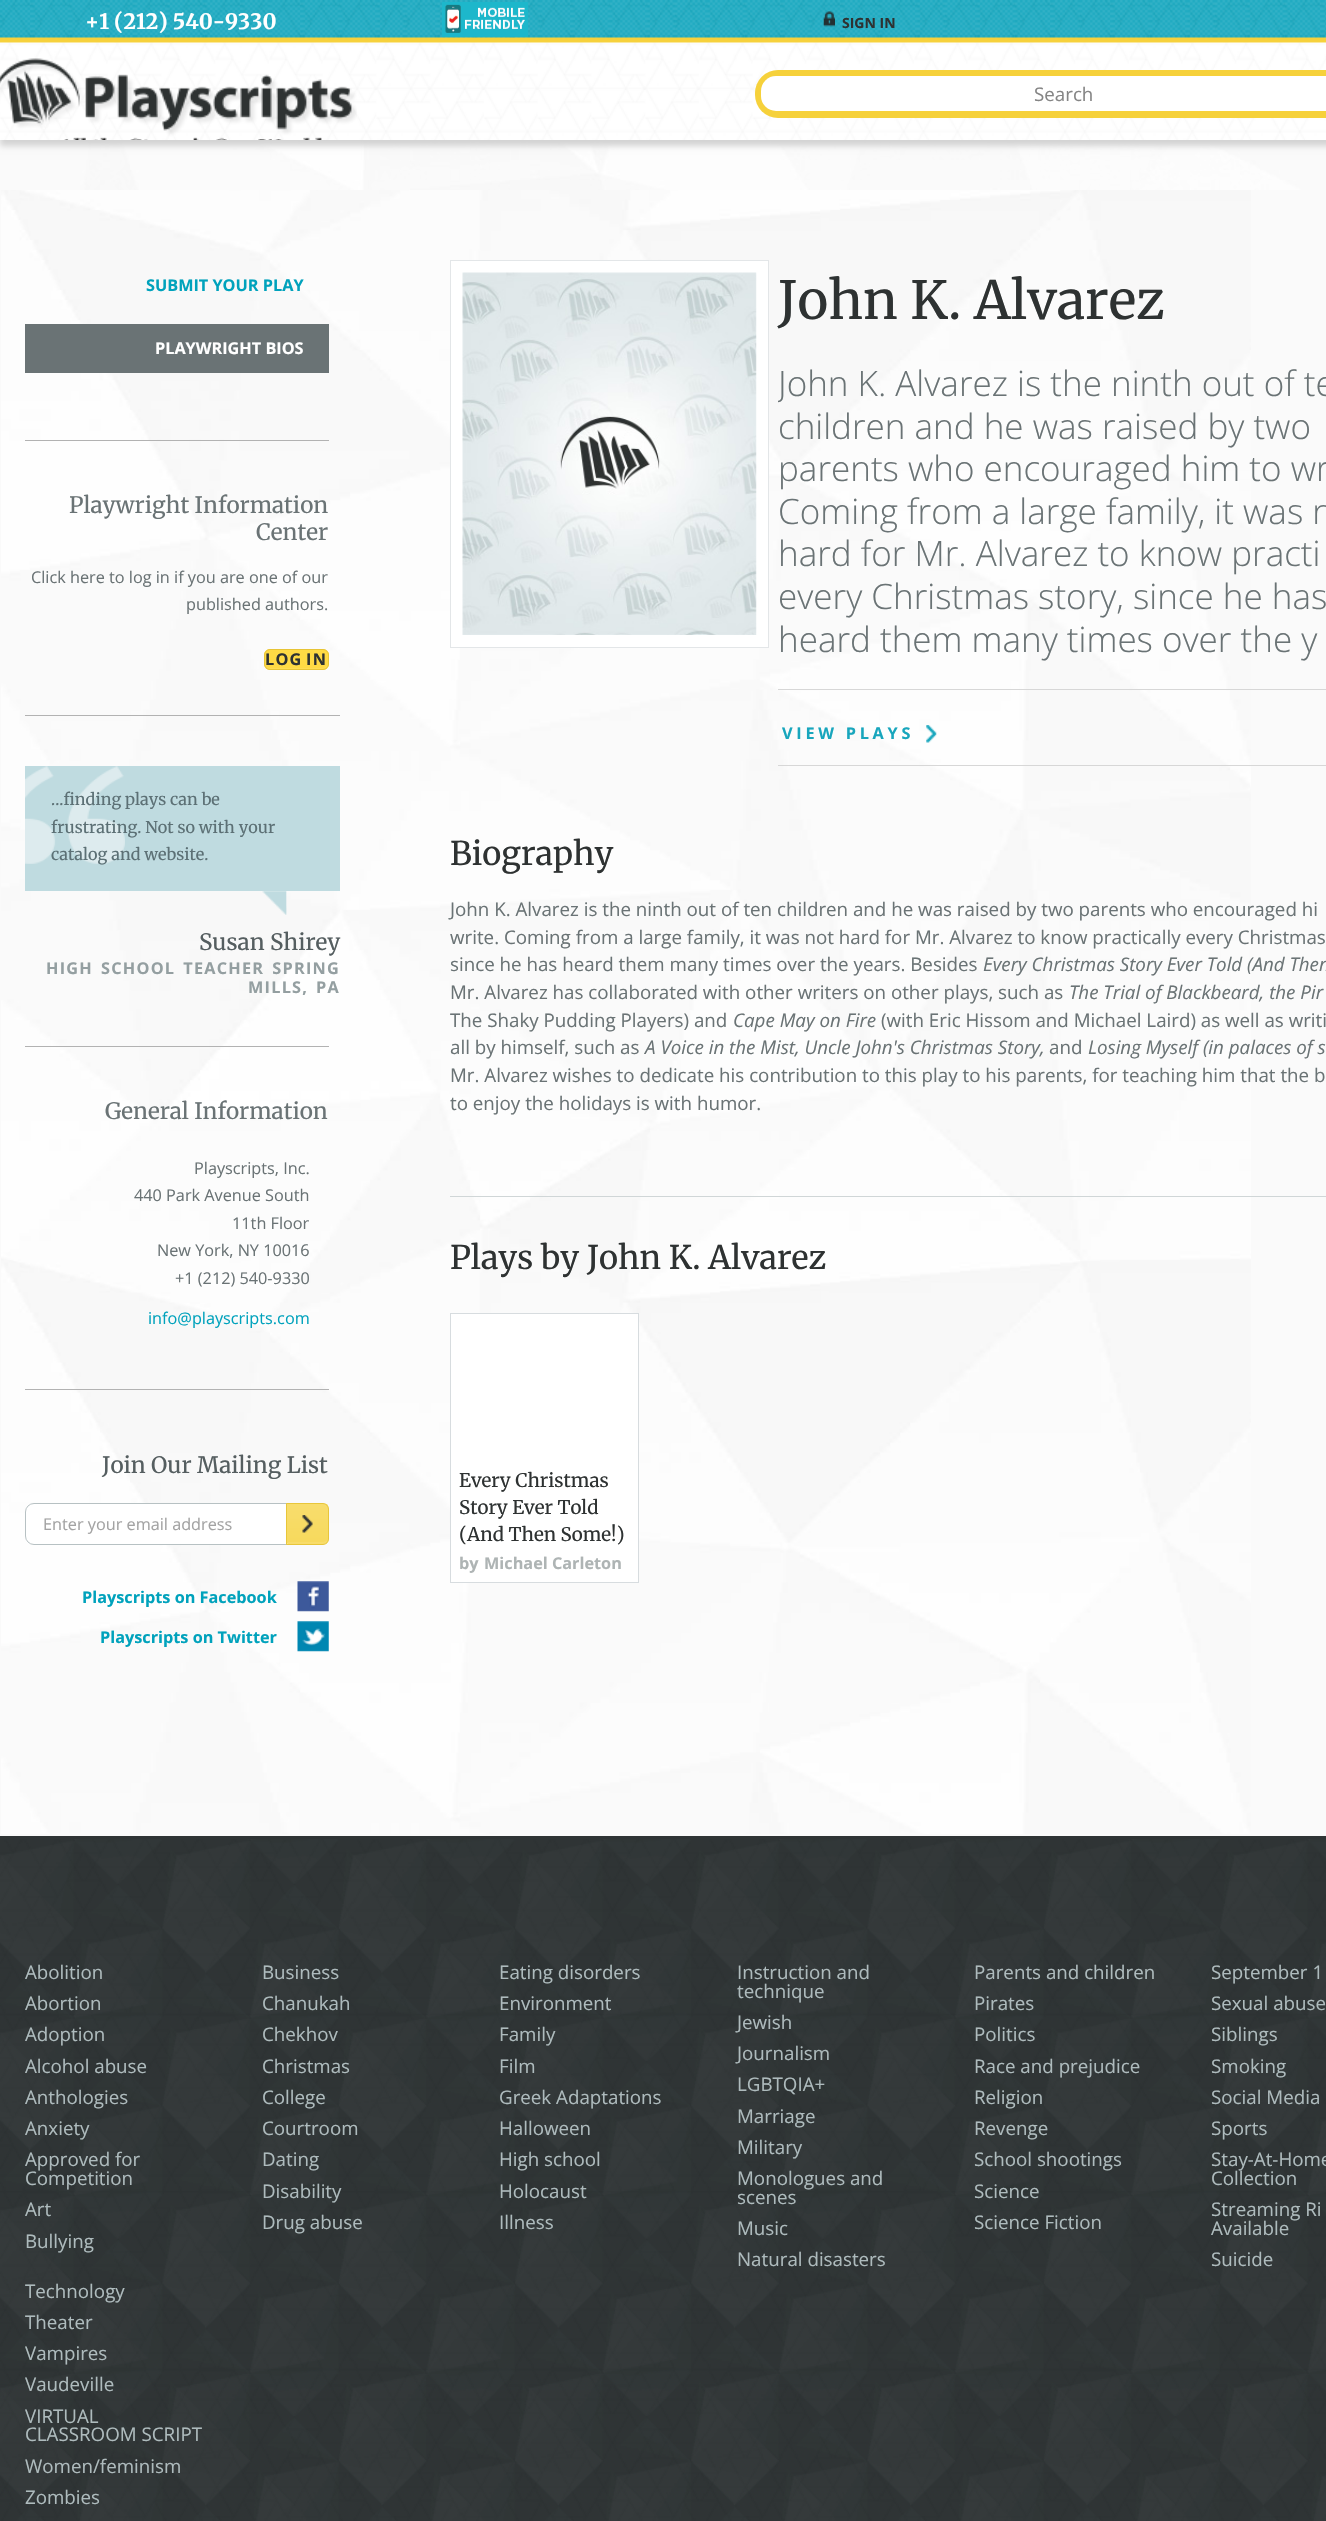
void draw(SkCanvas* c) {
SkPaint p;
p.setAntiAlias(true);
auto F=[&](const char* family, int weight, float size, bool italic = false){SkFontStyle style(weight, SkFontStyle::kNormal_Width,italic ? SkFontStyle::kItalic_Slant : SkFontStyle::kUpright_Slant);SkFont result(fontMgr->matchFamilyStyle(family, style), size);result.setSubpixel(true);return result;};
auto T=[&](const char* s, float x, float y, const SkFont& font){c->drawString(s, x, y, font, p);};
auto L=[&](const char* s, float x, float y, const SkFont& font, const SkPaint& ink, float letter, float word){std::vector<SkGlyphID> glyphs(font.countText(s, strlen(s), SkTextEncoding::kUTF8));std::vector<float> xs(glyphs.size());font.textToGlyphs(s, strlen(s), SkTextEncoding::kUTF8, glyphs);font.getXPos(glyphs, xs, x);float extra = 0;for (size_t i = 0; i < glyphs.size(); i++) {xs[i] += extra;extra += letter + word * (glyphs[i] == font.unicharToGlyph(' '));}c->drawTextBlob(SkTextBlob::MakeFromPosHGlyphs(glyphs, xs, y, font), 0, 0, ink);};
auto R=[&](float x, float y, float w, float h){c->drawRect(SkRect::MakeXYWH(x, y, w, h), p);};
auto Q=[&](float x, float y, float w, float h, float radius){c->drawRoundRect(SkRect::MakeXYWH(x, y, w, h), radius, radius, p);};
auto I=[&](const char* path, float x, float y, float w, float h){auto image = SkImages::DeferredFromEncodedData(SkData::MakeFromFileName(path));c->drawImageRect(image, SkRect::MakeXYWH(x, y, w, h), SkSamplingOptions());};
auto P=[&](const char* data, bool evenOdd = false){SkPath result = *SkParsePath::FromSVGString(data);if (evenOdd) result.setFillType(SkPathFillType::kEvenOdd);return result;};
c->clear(0xffffffff);
I("1.png",0,140,1326,50);
p.setColor(0xffd3d3d3);
p.setMaskFilter(SkMaskFilter::MakeBlur(kNormal_SkBlurStyle, 3));
c->drawRect(SkRect::MakeXYWH(0,6,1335,140),p);
p.setMaskFilter(nullptr);
I("2.png",0,42,1326,98);
I("3.png",0,0,1326,43);
auto f1 = F("Merriweather",700,21.25);
p.setColor(0xffffffff);
T("+1 (212) 540-9330",85,29,f1);
I("4.png",442,2,86,35);
I("5.png",823,11,12,16);
auto f2 = F("Open Sans",700,14);
p.setColor(0xff2e3232);
T("SIGN IN",842,28,f2);
I("6.png",0,58,357,82);
p.setColor(0xfff6d13b);
Q(755,70,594,48,23);
p.setColor(0xffffffff);
Q(761,76,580,35,15);
auto f3 = F("Open Sans",400,18.75);
p.setColor(0xff858585);
T("Search",1034,101,f3);
p.setColor(0xfffafafa);
R(0,190,1326,1646);
I("7.png",1,190,1250,1644);
auto f4 = F("Open Sans",700,16.25);
p.setColor(0xff00a2bc);
T("SUBMIT YOUR PLAY",146,291,f4);
p.setColor(0xff6a7375);
R(25,324,304,49);
p.setColor(0xffffffff);
T("PLAYWRIGHT BIOS",155,354,f4);
p.setColor(0xffb2b2b2);
R(25,440,304,1);
auto f5 = F("Merriweather",400,22.5);
p.setColor(0xff6a7375);
T("Playwright Information",69,513,f5);
T("Center",256,540,f5);
auto f6 = F("Open Sans",400,16.25);
T("Click here to log in if you are one of our",31,583,f6);
T("published authors.",186,610,f6);
p.setColor(0xffffda44);
Q(264,649,65,21,6);
p.setColor(0xffffdd53);
c->drawPath(P("M265 662c0 9 6 7 14 7h35c8 0 14 2 14-7c0 3-3 6-6 6h-52c-3 0-5-3-5-6z"),p);
p.setStroke(true);
p.setStrokeWidth(1);
p.setColor(0xffe7c436);
c->drawRoundRect(SkRect::MakeXYWH(264.5,649.5,64,20),5.5,5.5,p);
p.setStroke(false);
p.setColor(0xff2e3232);
L("LOG IN",265,665,f4,p,1.25,-2);
p.setColor(0xffb2b2b2);
R(25,715,315,1);
p.setColor(0xffbfdbe0);
R(25,766,315,125);
I("8.png",25,766,100,98);
auto f7 = F("Merriweather",400,16.25);
p.setColor(0xff5c7075);
T("...finding plays can be",51,805,f7);
T("frustrating. Not so with your",51,833,f7);
T("catalog and website.",51,860,f7);
I("9.png",262,891,25,24);
p.setColor(0xff555e60);
T("Susan Shirey",199,950,f5);
p.setColor(0xff949fa1);
L("HIGH SCHOOL TEACHER SPRING",46,974,f4,p,1.25,2.5);
L("MILLS, PA",248,993,f4,p,1.25,2.5);
p.setColor(0xffb2b2b2);
R(25,1046,304,1);
p.setColor(0xff6a7375);
T("General Information",105,1119,f5);
T("Playscripts, Inc.",194,1174,f6);
T("440 Park Avenue South",134,1201,f6);
T("11th Floor",232,1229,f6);
T("New York, NY 10016",157,1256,f6);
T("+1 (212) 540-9330",175,1284,f6);
p.setColor(0xff00a2bc);
T("info@playscripts.com",148,1324,f6);
p.setColor(0xffb2b2b2);
R(25,1389,304,1);
p.setColor(0xff555e60);
T("Join Our Mailing List",102,1473,f5);
p.setColor(0xffffffff);
c->drawRoundRect(SkRect::MakeXYWH(25.5,1503.5,303,41),8.5,8.5,p);
p.setStroke(true);
p.setColor(0xffb7c1c3);
c->drawRoundRect(SkRect::MakeXYWH(25.5,1503.5,303,41),8.5,8.5,p);
p.setStroke(false);
p.setColor(0xffa3a3a3);
T("Enter your email address",43,1530,f6);
I("10.png",287,1503,42,41);
p.setColor(0xfff8dc6a);
c->drawPath(P("M288 1542v2h23c6 0 17 3 17-6c0 2-3 4-6 4z"),p);
p.setStroke(true);
p.setColor(0xffe8c63a);
c->drawPath(P("M286.5 1503.5h36.5c3 0 5.5 2.5 5.5 5.5v30c0 3-2.5 5.5-5.5 5.5h-36.5z"),p);
I("11.png",302,1515,11,18);
p.setStroke(false);
p.setColor(0xff00a2bc);
T("Playscripts on Facebook",82,1603,f4);
I("12.png",297,1581,32,31);
T("Playscripts on Twitter",100,1643,f4);
I("13.png",297,1621,32,31);
p.setColor(0xffffffff);
c->drawRect(SkRect::MakeXYWH(450.5,260.5,318,387),p);
p.setStroke(true);
p.setColor(0xffe3e6e8);
c->drawRect(SkRect::MakeXYWH(450.5,260.5,318,387),p);
I("14.png",462,272,295,363);
auto f8 = F("Merriweather",400,52.5);
p.setStroke(false);
p.setColor(0xff2e3232);
T("John K. Alvarez",778,319,f8);
c->save();
c->clipRect(SkRect::MakeXYWH(778,273,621,493));
auto f9 = F("Open Sans",300,35);
p.setColor(0xff6a7375);
T("John K. Alvarez is the ninth out of te",778,396,f9);
c->restore();
T("children and he was raised by two",778,439,f9);
T("parents who encouraged him to wr",778,481,f9);
T("Coming from a large family, it was n",778,524,f9);
T("hard for Mr. Alvarez to know practi",778,566,f9);
T("every Christmas story, since he has",778,609,f9);
T("heard them many times over the y",778,652,f9);
p.setColor(0xffd7d7d7);
R(778,689,548,1);
R(778,765,548,1);
I("15.png",926,725,11,18);
p.setColor(0xff18a6bd);
L("VIEW PLAYS",782,739,f4,p,3.75,0);
auto f10 = F("Merriweather",400,32.5);
p.setColor(0xff2e3232);
T("Biography",450,865,f10);
p.setColor(0xff6a7375);
T("John K. Alvarez is the ninth out of ten children and he was raised by two parents who encouraged hi",450,916,f3);
T("write. Coming from a large family, it was not hard for Mr. Alvarez to know practically every Christmas",450,944,f3);
T("since he has heard them many times over the years. Besides",450,971,f3);
auto f11 = F("Open Sans",400,18.75,true);
T("Every Christmas Story Ever Told (And Then",983,971,f11);
T("Mr. Alvarez has collaborated with other writers on other plays, such as",450,999,f3);
T("The Trial of Blackbeard, the Pir",1069,999,f11);
T("The Shaky Pudding Players) and",450,1027,f3);
T("Cape May on Fire",733,1027,f11);
T("(with Eric Hissom and Michael Laird) as well as writi",881,1027,f3);
T("all by himself, such as",450,1054,f3);
T("A Voice in the Mist, Uncle John's Christmas Story,",645,1054,f11);
T("and",1049,1054,f3);
T("Losing Myself (in palaces of s",1088,1054,f11);
T("Mr. Alvarez wishes to dedicate his contribution to this play to his parents, for teaching him that the b",450,1082,f3);
T("to enjoy the holidays is with humor.",450,1110,f3);
p.setColor(0xffd0d6d7);
R(450,1196,876,1);
p.setColor(0xff2e3232);
T("Plays by John K. Alvarez",450,1269,f10);
p.setColor(0xffffffff);
c->drawRect(SkRect::MakeXYWH(450.5,1313.5,188,269),p);
p.setStroke(true);
p.setColor(0xffd7dcdf);
c->drawRect(SkRect::MakeXYWH(450.5,1313.5,188,269),p);
auto f12 = F("Merriweather",400,18.75);
p.setStroke(false);
p.setColor(0xff2e3232);
T("Every Christmas",459,1487,f12);
T("Story Ever Told",459,1514,f12);
T("(And Then Some!)",459,1541,f12);
p.setColor(0xffaeb4b4);
T("by",459,1569,f4);
T("Michael Carleton",484,1569,f4);
p.setColor(0xff2f3435);
R(0,1836,1326,3);
I("16.png",0,1839,1326,682);
p.setColor(0xffaebbbd);
T("Abolition",25,1979,f3);
T("Abortion",25,2010,f3);
T("Adoption",25,2041,f3);
T("Alcohol abuse",25,2073,f3);
T("Anthologies",25,2104,f3);
T("Anxiety",25,2135,f3);
T("Approved for",25,2166,f3);
T("Competition",25,2185,f3);
T("Art",25,2216,f3);
T("Bullying",25,2248,f3);
T("Business",262,1979,f3);
T("Chanukah",262,2010,f3);
T("Chekhov",262,2041,f3);
T("Christmas",262,2073,f3);
T("College",262,2104,f3);
T("Courtroom",262,2135,f3);
T("Dating",262,2166,f3);
T("Disability",262,2198,f3);
T("Drug abuse",262,2229,f3);
T("Eating disorders",499,1979,f3);
T("Environment",499,2010,f3);
T("Family",499,2041,f3);
T("Film",499,2073,f3);
T("Greek Adaptations",499,2104,f3);
T("Halloween",499,2135,f3);
T("High school",499,2166,f3);
T("Holocaust",499,2198,f3);
T("Illness",499,2229,f3);
T("Instruction and",737,1979,f3);
T("technique",737,1998,f3);
T("Jewish",737,2029,f3);
T("Journalism",737,2060,f3);
T("LGBTQIA+",737,2091,f3);
T("Marriage",737,2123,f3);
T("Military",737,2154,f3);
T("Monologues and",737,2185,f3);
T("scenes",737,2204,f3);
T("Music",737,2235,f3);
T("Natural disasters",737,2266,f3);
T("Parents and children",974,1979,f3);
T("Pirates",974,2010,f3);
T("Politics",974,2041,f3);
T("Race and prejudice",974,2073,f3);
T("Religion",974,2104,f3);
T("Revenge",974,2135,f3);
T("School shootings",974,2166,f3);
T("Science",974,2198,f3);
T("Science Fiction",974,2229,f3);
T("September 1",1211,1979,f3);
T("Sexual abuse",1211,2010,f3);
T("Siblings",1211,2041,f3);
T("Smoking",1211,2073,f3);
T("Social Media",1211,2104,f3);
T("Sports",1211,2135,f3);
T("Stay-At-Home",1211,2166,f3);
T("Collection",1211,2185,f3);
T("Streaming Ri",1211,2216,f3);
T("Available",1211,2235,f3);
T("Suicide",1211,2266,f3);
T("Technology",25,2298,f3);
T("Theater",25,2329,f3);
T("Vampires",25,2360,f3);
T("Vaudeville",25,2391,f3);
T("VIRTUAL",25,2423,f3);
T("CLASSROOM SCRIPT",25,2441,f3);
T("Women/feminism",25,2473,f3);
T("Zombies",25,2504,f3);
}
